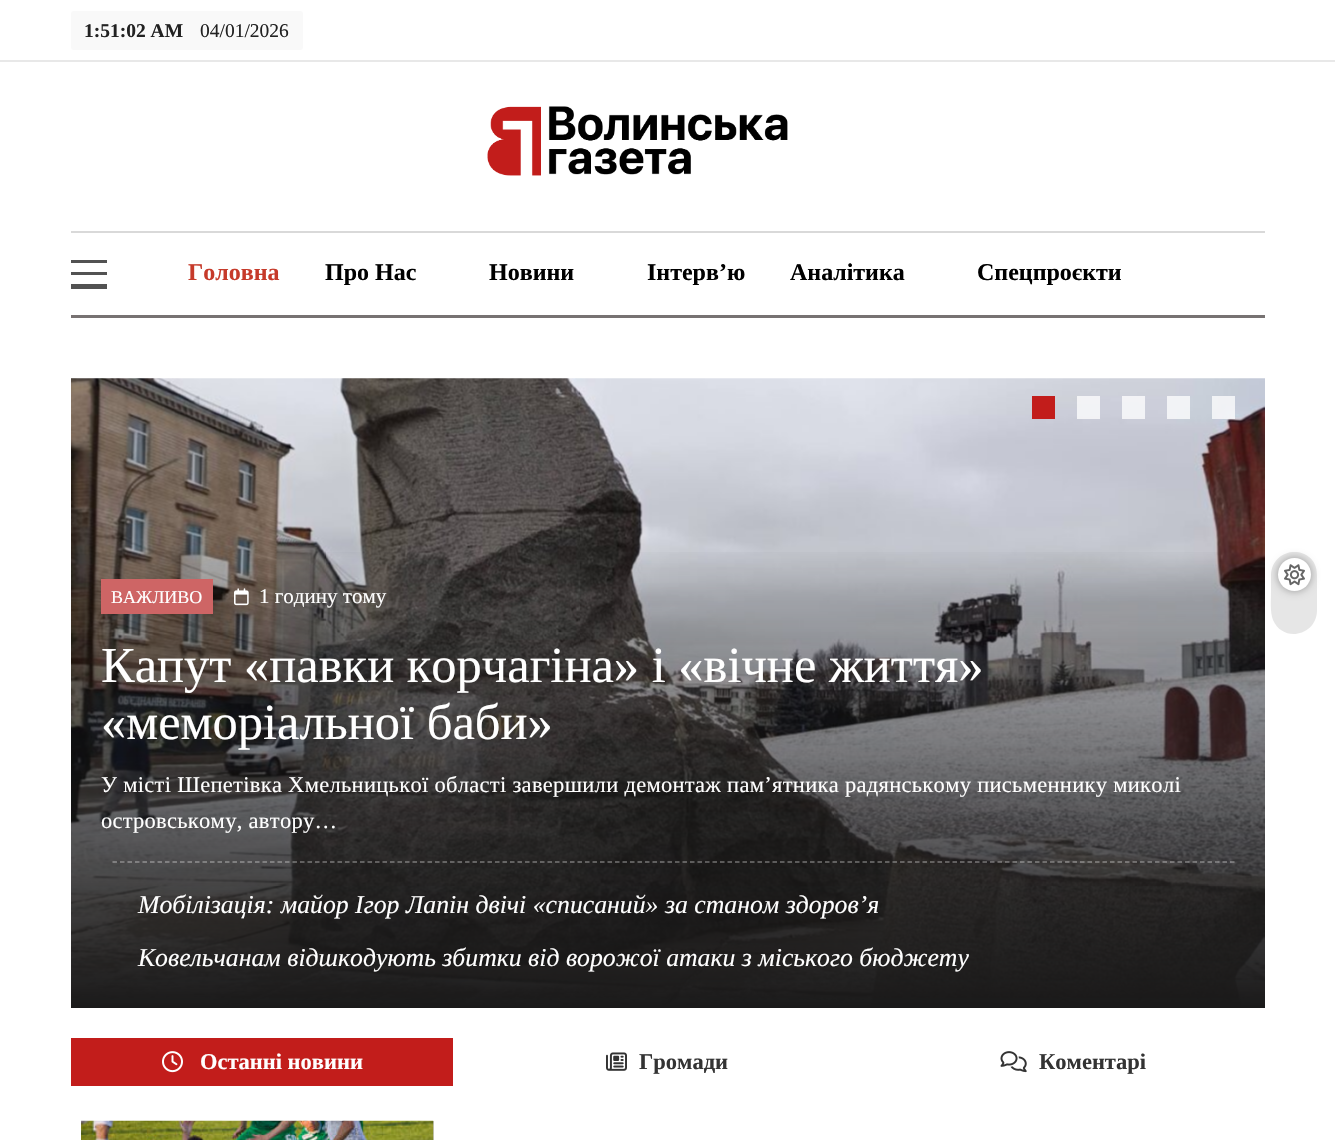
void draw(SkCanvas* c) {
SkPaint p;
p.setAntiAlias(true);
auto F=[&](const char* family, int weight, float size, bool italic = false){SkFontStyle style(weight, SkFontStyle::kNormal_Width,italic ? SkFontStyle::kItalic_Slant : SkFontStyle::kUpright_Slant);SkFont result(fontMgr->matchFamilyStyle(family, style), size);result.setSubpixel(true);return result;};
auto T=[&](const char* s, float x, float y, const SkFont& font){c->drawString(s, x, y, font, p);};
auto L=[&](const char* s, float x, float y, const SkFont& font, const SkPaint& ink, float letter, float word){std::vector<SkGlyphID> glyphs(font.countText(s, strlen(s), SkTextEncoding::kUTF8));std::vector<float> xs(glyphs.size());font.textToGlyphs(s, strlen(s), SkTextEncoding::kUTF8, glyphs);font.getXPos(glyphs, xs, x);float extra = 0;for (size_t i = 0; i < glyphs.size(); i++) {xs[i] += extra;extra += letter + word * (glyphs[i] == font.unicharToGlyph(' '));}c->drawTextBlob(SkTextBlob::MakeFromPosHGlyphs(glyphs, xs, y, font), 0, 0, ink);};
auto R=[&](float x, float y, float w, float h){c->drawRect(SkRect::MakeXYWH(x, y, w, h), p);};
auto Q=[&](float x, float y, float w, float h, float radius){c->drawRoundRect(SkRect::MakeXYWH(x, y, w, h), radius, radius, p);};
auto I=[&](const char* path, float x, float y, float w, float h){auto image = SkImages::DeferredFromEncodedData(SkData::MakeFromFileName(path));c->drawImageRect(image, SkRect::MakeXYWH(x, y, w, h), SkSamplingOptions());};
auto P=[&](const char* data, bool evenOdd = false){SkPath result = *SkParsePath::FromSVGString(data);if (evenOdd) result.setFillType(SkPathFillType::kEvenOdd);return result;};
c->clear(0xffffffff);
p.setColor(0xffe8e8e8);
R(0,60,1335,2);
p.setColor(0xfff9f9f9);
Q(71,11,232,39,3);
auto f1 = F("Liberation Serif",700,19.5);
p.setColor(0xff222222);
T("1:51:02 AM",84,37,f1);
auto f2 = F("Liberation Serif",400,19.5);
T("04/01/2026",200,37,f2);
I("1.png",487,106,301,70);
p.setColor(0xffd9d9d9);
R(71,231,1194,2);
p.setColor(0xff777272);
R(71,315,1194,3);
p.setColor(0xff525252);
R(71,260,36,3);
R(71,272,36,3);
R(71,284,36,5);
auto f3 = F("Liberation Serif",700,24);
p.setColor(0xffc63a2a);
T("Головна",188,280,f3);
p.setColor(0xff000000);
T("Про Нас",325,280,f3);
T("Новини",489,280,f3);
T("Інтерв’ю",647,280,f3);
T("Аналітика",790,280,f3);
T("Спецпроєкти",977,280,f3);
p.setColor(0xffe6e6e6);
c->drawPath(P("M1317 575v36c-1 25-34 32-44 9c-3-8-2-19-2-27v-18c2-31 46-30 46 0z"),p);
p.setColor(0x59000000);
p.setMaskFilter(SkMaskFilter::MakeBlur(kNormal_SkBlurStyle, 4));
c->drawRoundRect(SkRect::MakeXYWH(1278,558,33,33),16.5,16.5,p);
p.setMaskFilter(nullptr);
p.setColor(0xffffffff);
c->drawCircle(1294.5,574.5,16.5,p);
I("2.png",1284,564,21,22);
I("3.png",71,378,1194,627);
p.setColor(0xffc21d1b);
R(1032,396,23,23);
p.setColor(0xbfffffff);
R(1077,396,23,23);
R(1122,396,23,23);
R(1167,396,23,23);
R(1212,396,23,23);
{
const SkColor colors[] = {0xff1a1919,0x001a1919};
const float stops[] = {0,1};
const SkPoint ends[] = {{668,1008}, {668,542}};
p.setShader(SkGradientShader::MakeLinear(ends, colors, stops, 2, SkTileMode::kClamp));
p.setAlpha(255);
}
R(71,552,1194,456);
p.setShader(nullptr);
p.setColor(0xffce6565);
R(101,579,112,35);
auto f4 = F("Liberation Serif",400,18);
p.setColor(0xffffffff);
T("ВАЖЛИВО",111,603,f4);
I("4.png",234,588,15,18);
auto f5 = F("Liberation Serif",400,21);
T("1 годину тому",259,603,f5);
auto f6 = F("Liberation Serif",400,50.5);
T("Капут «павки корчагіна» і «вічне життя»",101,682,f6);
T("«меморіальної баби»",101,739,f6);
auto f7 = F("Liberation Serif",400,22.5);
L("У місті Шепетівка Хмельницької області завершили демонтаж пам’ятника радянському письменнику миколі",101,792,f7,p,.3,0);
L("островському, автору…",101,828,f7,p,.3,0);
p.setStroke(true);
p.setStrokeWidth(1.5);
p.setColor(0x61ffffff);
p.setPathEffect(SkDashPathEffect::Make({{4.5f,3}}, 0));
c->drawPath(P("M112.5 862h1122"),p);
p.setPathEffect(nullptr);
auto f8 = F("Liberation Serif",400,25.75,true);
p.setStroke(false);
p.setColor(0xffffffff);
T("Мобілізація: майор Ігор Лапін двічі «списаний» за станом здоров’я",138,913,f8);
T("Ковельчанам відшкодують збитки від ворожої атаки з міського бюджету",138,966,f8);
p.setColor(0xffc21d1b);
R(71,1038,382,48);
I("5.png",162,1051,21,22);
auto f9 = F("Liberation Serif",700,22.5);
p.setColor(0xffffffff);
T("Останні новини",200,1069,f9);
I("6.png",606,1052,21,19);
p.setColor(0xff333333);
T("Громади",639,1069,f9);
I("7.png",1000,1051,27,22);
T("Коментарі",1039,1069,f9);
p.setColor(0xffcccccc);
R(433,1121,1,19);
I("8.png",81,1120,353,20);
}
